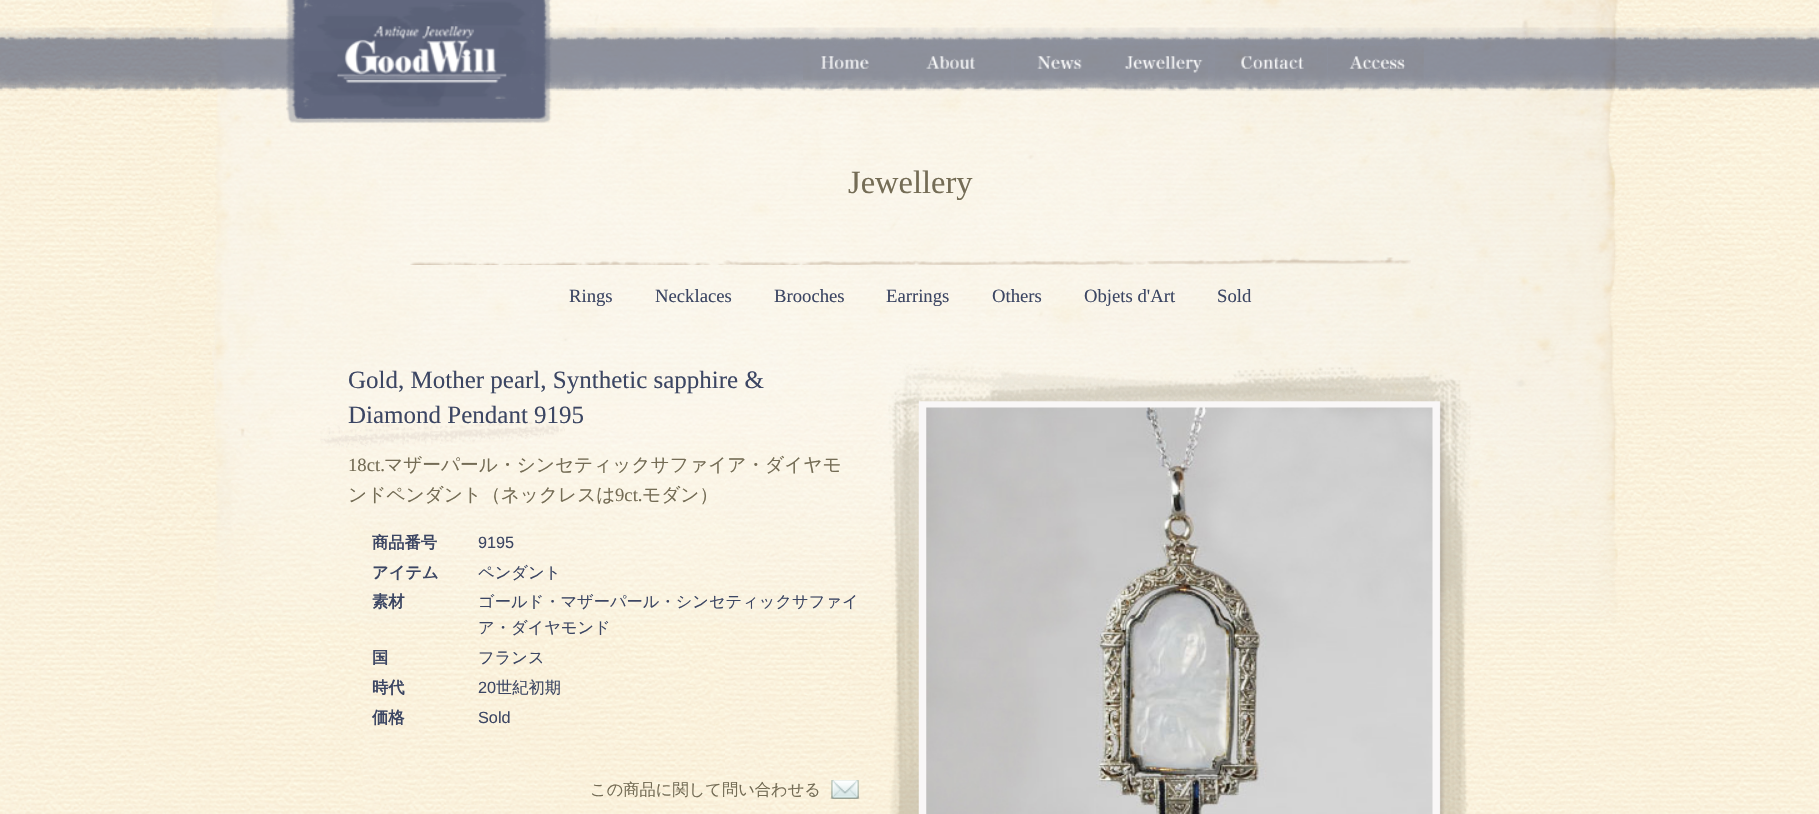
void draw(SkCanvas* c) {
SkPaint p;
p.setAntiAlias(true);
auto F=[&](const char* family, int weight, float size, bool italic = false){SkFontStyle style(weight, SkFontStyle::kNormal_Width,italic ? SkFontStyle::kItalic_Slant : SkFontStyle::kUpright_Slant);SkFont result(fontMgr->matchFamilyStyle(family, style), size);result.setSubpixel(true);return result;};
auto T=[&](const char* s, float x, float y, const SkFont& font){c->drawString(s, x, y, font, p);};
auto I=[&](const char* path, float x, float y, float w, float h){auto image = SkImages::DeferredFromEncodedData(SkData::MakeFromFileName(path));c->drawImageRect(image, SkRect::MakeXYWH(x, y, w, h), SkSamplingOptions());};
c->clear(0xffffffff);
I("1.png",0,0,1819,814);
I("10.png",212,0,1406,623);
I("2.png",0,27,1819,64);
I("3.png",286,0,266,124);
I("4.png",803,46,81,34);
I("5.png",884,50,127,30);
I("6.png",1014,45,91,35);
I("7.png",1105,45,103,35);
I("8.png",1215,45,112,35);
I("9.png",1328,46,96,34);
I("11.png",410,257,1001,8);
auto f1 = F("Liberation Serif",400,32.5);
p.setColor(0xff746c55);
T("Jewellery",848,193,f1);
auto f2 = F("Liberation Serif",400,18.7);
p.setColor(0xff3c4663);
T("Rings",569,302,f2);
T("Necklaces",655,302,f2);
T("Brooches",774,302,f2);
T("Earrings",886,302,f2);
T("Others",992,302,f2);
T("Objets d'Art",1084,302,f2);
T("Sold",1217,302,f2);
I("12.png",320,419,245,29);
auto f3 = F("Liberation Serif",400,25);
T("Gold, Mother pearl, Synthetic sapphire &",348,388,f3);
T("Diamond Pendant 9195",348,423,f3);
p.setColor(0xff746c55);
T("18ct.",348,471,f2);
auto f4 = F("WenQuanYi Zen Hei",500,18.7);
T("マザーパール・シンセティックサファイア・ダイヤモ",384,471,f4);
T("ンドペンダント（ネックレスは",348,501,f4);
T("9ct.",615,501,f2);
T("モダン）",642,501,f4);
auto f5 = F("WenQuanYi Zen Hei",700,16.25);
p.setColor(0xff3c4663);
T("商品番号",372,548,f5);
auto f6 = F("Liberation Sans",400,16.25);
T("9195",478,548,f6);
T("アイテム",372,578,f5);
auto f7 = F("WenQuanYi Zen Hei",500,16.25);
T("ペンダント",478,578,f7);
T("素材",372,607,f5);
T("ゴールド・マザーパール・シンセティックサファイ",478,607,f7);
T("ア・ダイヤモンド",478,633,f7);
T("国",372,663,f5);
T("フランス",478,663,f7);
T("時代",372,693,f5);
T("20",478,693,f6);
T("世紀初期",496,693,f7);
T("価格",372,723,f5);
T("Sold",478,723,f6);
p.setColor(0xff746c55);
T("この商品に関して問い合わせる",590,795,f7);
I("13.png",830,780,30,19);
I("14.png",888,364,583,450);
I("15.png",926,407,507,407);
}
